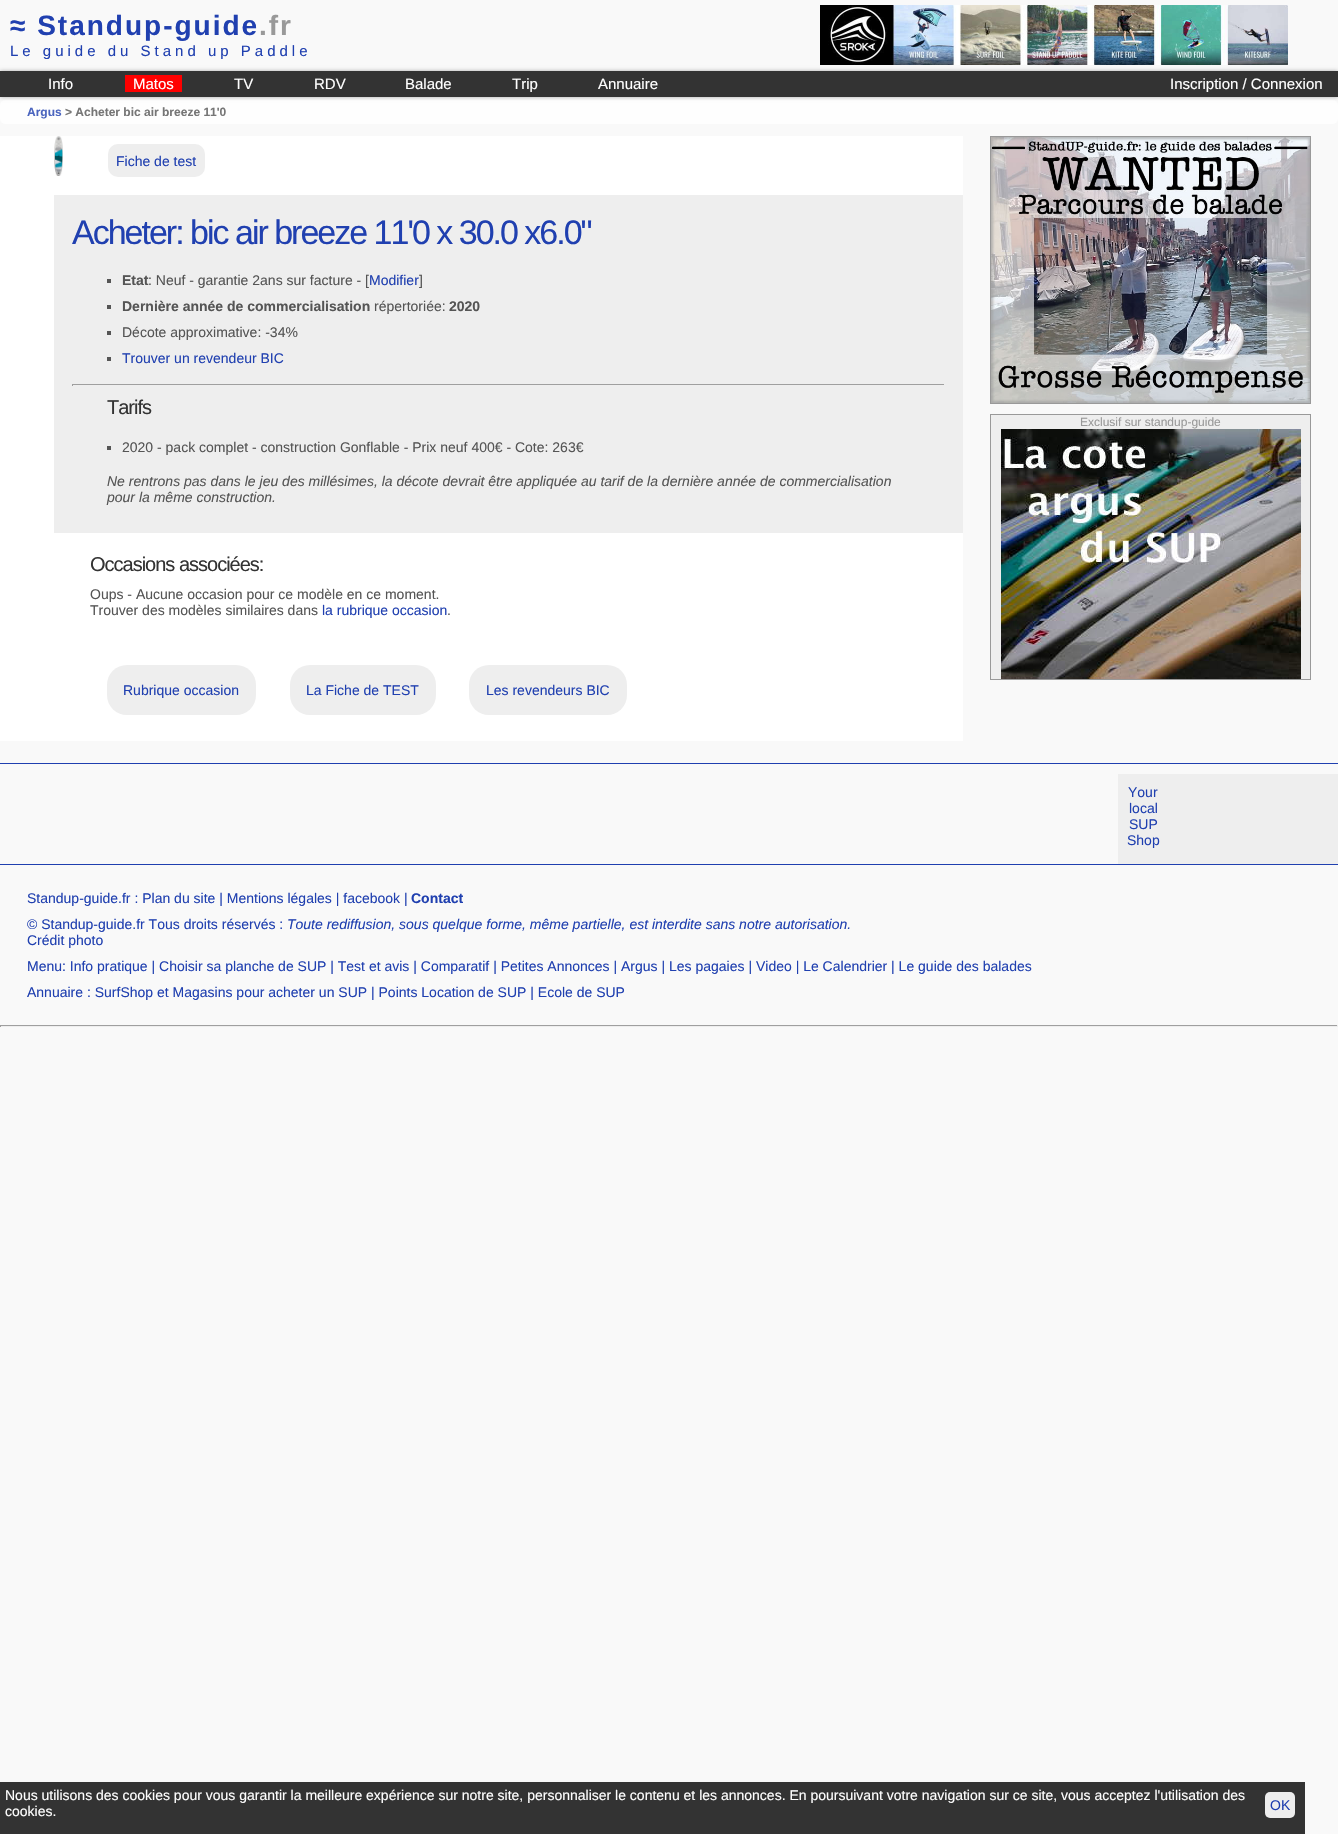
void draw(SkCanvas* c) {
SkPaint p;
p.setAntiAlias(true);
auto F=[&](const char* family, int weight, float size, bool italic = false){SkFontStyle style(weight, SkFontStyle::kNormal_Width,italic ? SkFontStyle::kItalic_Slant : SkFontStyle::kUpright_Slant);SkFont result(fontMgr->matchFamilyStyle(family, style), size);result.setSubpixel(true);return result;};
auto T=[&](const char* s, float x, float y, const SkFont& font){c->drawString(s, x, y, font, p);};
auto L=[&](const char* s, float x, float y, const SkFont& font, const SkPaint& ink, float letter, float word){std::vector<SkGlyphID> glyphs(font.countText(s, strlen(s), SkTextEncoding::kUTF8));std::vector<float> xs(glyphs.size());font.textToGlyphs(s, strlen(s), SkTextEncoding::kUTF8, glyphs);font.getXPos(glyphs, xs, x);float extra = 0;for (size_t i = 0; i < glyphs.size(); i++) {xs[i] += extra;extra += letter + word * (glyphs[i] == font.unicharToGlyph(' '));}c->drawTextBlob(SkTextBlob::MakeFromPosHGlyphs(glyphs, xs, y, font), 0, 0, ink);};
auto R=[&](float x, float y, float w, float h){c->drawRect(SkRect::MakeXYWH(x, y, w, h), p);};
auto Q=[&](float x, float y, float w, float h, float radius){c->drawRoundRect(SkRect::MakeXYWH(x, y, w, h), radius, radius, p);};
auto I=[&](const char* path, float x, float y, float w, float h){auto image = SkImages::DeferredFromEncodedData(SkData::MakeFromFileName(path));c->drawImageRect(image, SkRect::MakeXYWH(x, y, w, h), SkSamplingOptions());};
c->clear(0xfff9f9f9);
auto f1 = F("Liberation Sans",700,28);
p.setColor(0xff2040b0);
L("≈ Standup-guide",10,35,f1,p,2,0);
p.setColor(0xff999999);
L(".fr",259,35,f1,p,2,0);
auto f2 = F("Liberation Sans",400,15);
p.setColor(0xff2040b0);
L("Le guide du Stand up Paddle",10,56,f2,p,4,0);
p.setColor(0xfffefefe);
Q(0,100,1338,24,5);
p.setColor(0xffaaaaaa);
p.setMaskFilter(SkMaskFilter::MakeBlur(kNormal_SkBlurStyle, 2));
c->drawRect(SkRect::MakeXYWH(0,71,1338,26),p);
p.setMaskFilter(nullptr);
I("1.png",820,5,468,60);
p.setColor(0xff333333);
R(0,71,1338,26);
p.setColor(0xffffffff);
T("Info",48,89,f2);
p.setColor(0xffff0000);
R(125,75,57,17);
p.setColor(0xffffffff);
T("Matos",133,89,f2);
T("TV",234,89,f2);
T("RDV",314,89,f2);
T("Balade",405,89,f2);
T("Trip",512,89,f2);
T("Annuaire",598,89,f2);
T("Inscription / Connexion",1170,89,f2);
auto f3 = F("Liberation Sans",700,12);
p.setColor(0xff4b65bf);
T("Argus",27,116,f3);
p.setColor(0xff767676);
T("> Acheter bic air breeze 11'0",65,116,f3);
p.setColor(0xffffffff);
R(0,136,963,605);
I("2.png",54,136,9,40);
p.setColor(0xffeeeeee);
Q(108,144,97,33,10);
auto f4 = F("Liberation Sans",400,14);
p.setColor(0xff2040b0);
T("Fiche de test",116,166,f4);
p.setColor(0xffeeeeee);
R(54,195,909,338);
auto f5 = F("Liberation Sans",400,34);
p.setColor(0xff2040b0);
L("Acheter: bic air breeze 11'0 x 30.0 x6.0\"",72,244,f5,p,-2,0);
p.setColor(0xff555555);
R(107,279,4,4);
auto f6 = F("Liberation Sans",700,14);
T("Etat",122,285,f6);
T(": Neuf - garantie 2ans sur facture - [",148,285,f4);
p.setColor(0xff2040b0);
T("Modifier",369,285,f4);
p.setColor(0xff555555);
T("]",419,285,f4);
R(107,305,4,4);
T("Dernière année de commercialisation",122,311,f6);
T("répertoriée:",374,311,f4);
T("2020",449,311,f6);
R(107,331,4,4);
T("Décote approximative: -34%",122,337,f4);
R(107,357,4,4);
p.setColor(0xff2040b0);
T("Trouver un revendeur BIC",122,363,f4);
p.setColor(0xff9f9f9f);
R(72,384,873,1);
p.setColor(0xffeeeeee);
R(944,384,1,2);
p.setColor(0xff9f9f9f);
R(72,384,1,2);
auto f7 = F("Liberation Sans",400,20);
p.setColor(0xff333333);
L("Tarifs",107,414,f7,p,-1,0);
p.setColor(0xff555555);
R(107,446,4,4);
T("2020 - pack complet - construction Gonflable - Prix neuf 400€ - Cote: 263€",122,452,f4);
auto f8 = F("Liberation Sans",400,14,true);
T("Ne rentrons pas dans le jeu des millésimes, la décote devrait être appliquée au tarif de la dernière année de commercialisation",107,486,f8);
T("pour la même construction.",107,502,f8);
p.setColor(0xff333333);
L("Occasions associées:",90,571,f7,p,-1,0);
p.setColor(0xff555555);
T("Oups - Aucune occasion pour ce modèle en ce moment.",90,599,f4);
T("Trouver des modèles similaires dans",90,615,f4);
p.setColor(0xff2040b0);
T("la rubrique occasion",322,615,f4);
p.setColor(0xff555555);
T(".",447,615,f4);
p.setColor(0xffeeeeee);
Q(107,665,149,50,20);
p.setColor(0xff2040b0);
T("Rubrique occasion",123,695,f4);
p.setColor(0xffeeeeee);
Q(290,665,146,50,20);
p.setColor(0xff2040b0);
T("La Fiche de TEST",306,695,f4);
p.setColor(0xffeeeeee);
Q(469,665,158,50,20);
p.setColor(0xff2040b0);
T("Les revendeurs BIC",486,695,f4);
p.setStroke(true);
p.setStrokeWidth(1);
p.setColor(0xff999999);
c->drawRect(SkRect::MakeXYWH(990.5,136.5,320,267),p);
I("3.png",991,137,319,266);
p.setStroke(false);
p.setColor(0xffeeeeee);
c->drawRect(SkRect::MakeXYWH(990.5,414.5,320,265),p);
p.setStroke(true);
p.setColor(0xff999999);
c->drawRect(SkRect::MakeXYWH(990.5,414.5,320,265),p);
auto f9 = F("Liberation Sans",400,12);
p.setStroke(false);
T("Exclusif sur standup-guide",1080,426,f9);
I("4.png",1001,429,300,250);
p.setColor(0xff2040b0);
R(0,763,1338,1);
R(0,864,1338,1);
p.setColor(0xffeeeeee);
R(1118,774,220,90);
p.setColor(0xff2040b0);
T("Your",1128,797,f4);
T("local",1129,813,f4);
T("SUP",1129,829,f4);
T("Shop",1127,845,f4);
T("Standup-guide.fr : Plan du site | Mentions légales | facebook |",27,903,f4);
T("Contact",411,903,f6);
T("© Standup-guide.fr Tous droits réservés :",27,929,f4);
T("Toute rediffusion, sous quelque forme, même partielle, est interdite sans notre autorisation.",287,929,f8);
T("Crédit photo",27,945,f4);
T("Menu: Info pratique | Choisir sa planche de SUP | Test et avis | Comparatif | Petites Annonces | Argus | Les pagaies | Video | Le Calendrier | Le guide des balades",27,971,f4);
T("Annuaire : SurfShop et Magasins pour acheter un SUP | Points Location de SUP | Ecole de SUP",27,997,f4);
p.setColor(0xff9f9f9f);
R(0,1025,1338,1);
p.setColor(0xffeeeeee);
R(1337,1025,1,2);
R(0,1026,1338,1);
p.setColor(0xff9f9f9f);
R(0,1025,1,2);
p.setColor(0xff333333);
R(0,1782,1305,52);
p.setColor(0xffffffff);
T("Nous utilisons des cookies pour vous garantir la meilleure expérience sur notre site, personnaliser le contenu et les annonces. En poursuivant votre navigation sur ce site, vous acceptez l'utilisation des",5,1800,f4);
T("cookies.",5,1816,f4);
p.setColor(0xffeeeeee);
Q(1265,1792,30,26,5);
p.setColor(0xff2040b0);
T("OK",1270,1810,f4);
}
